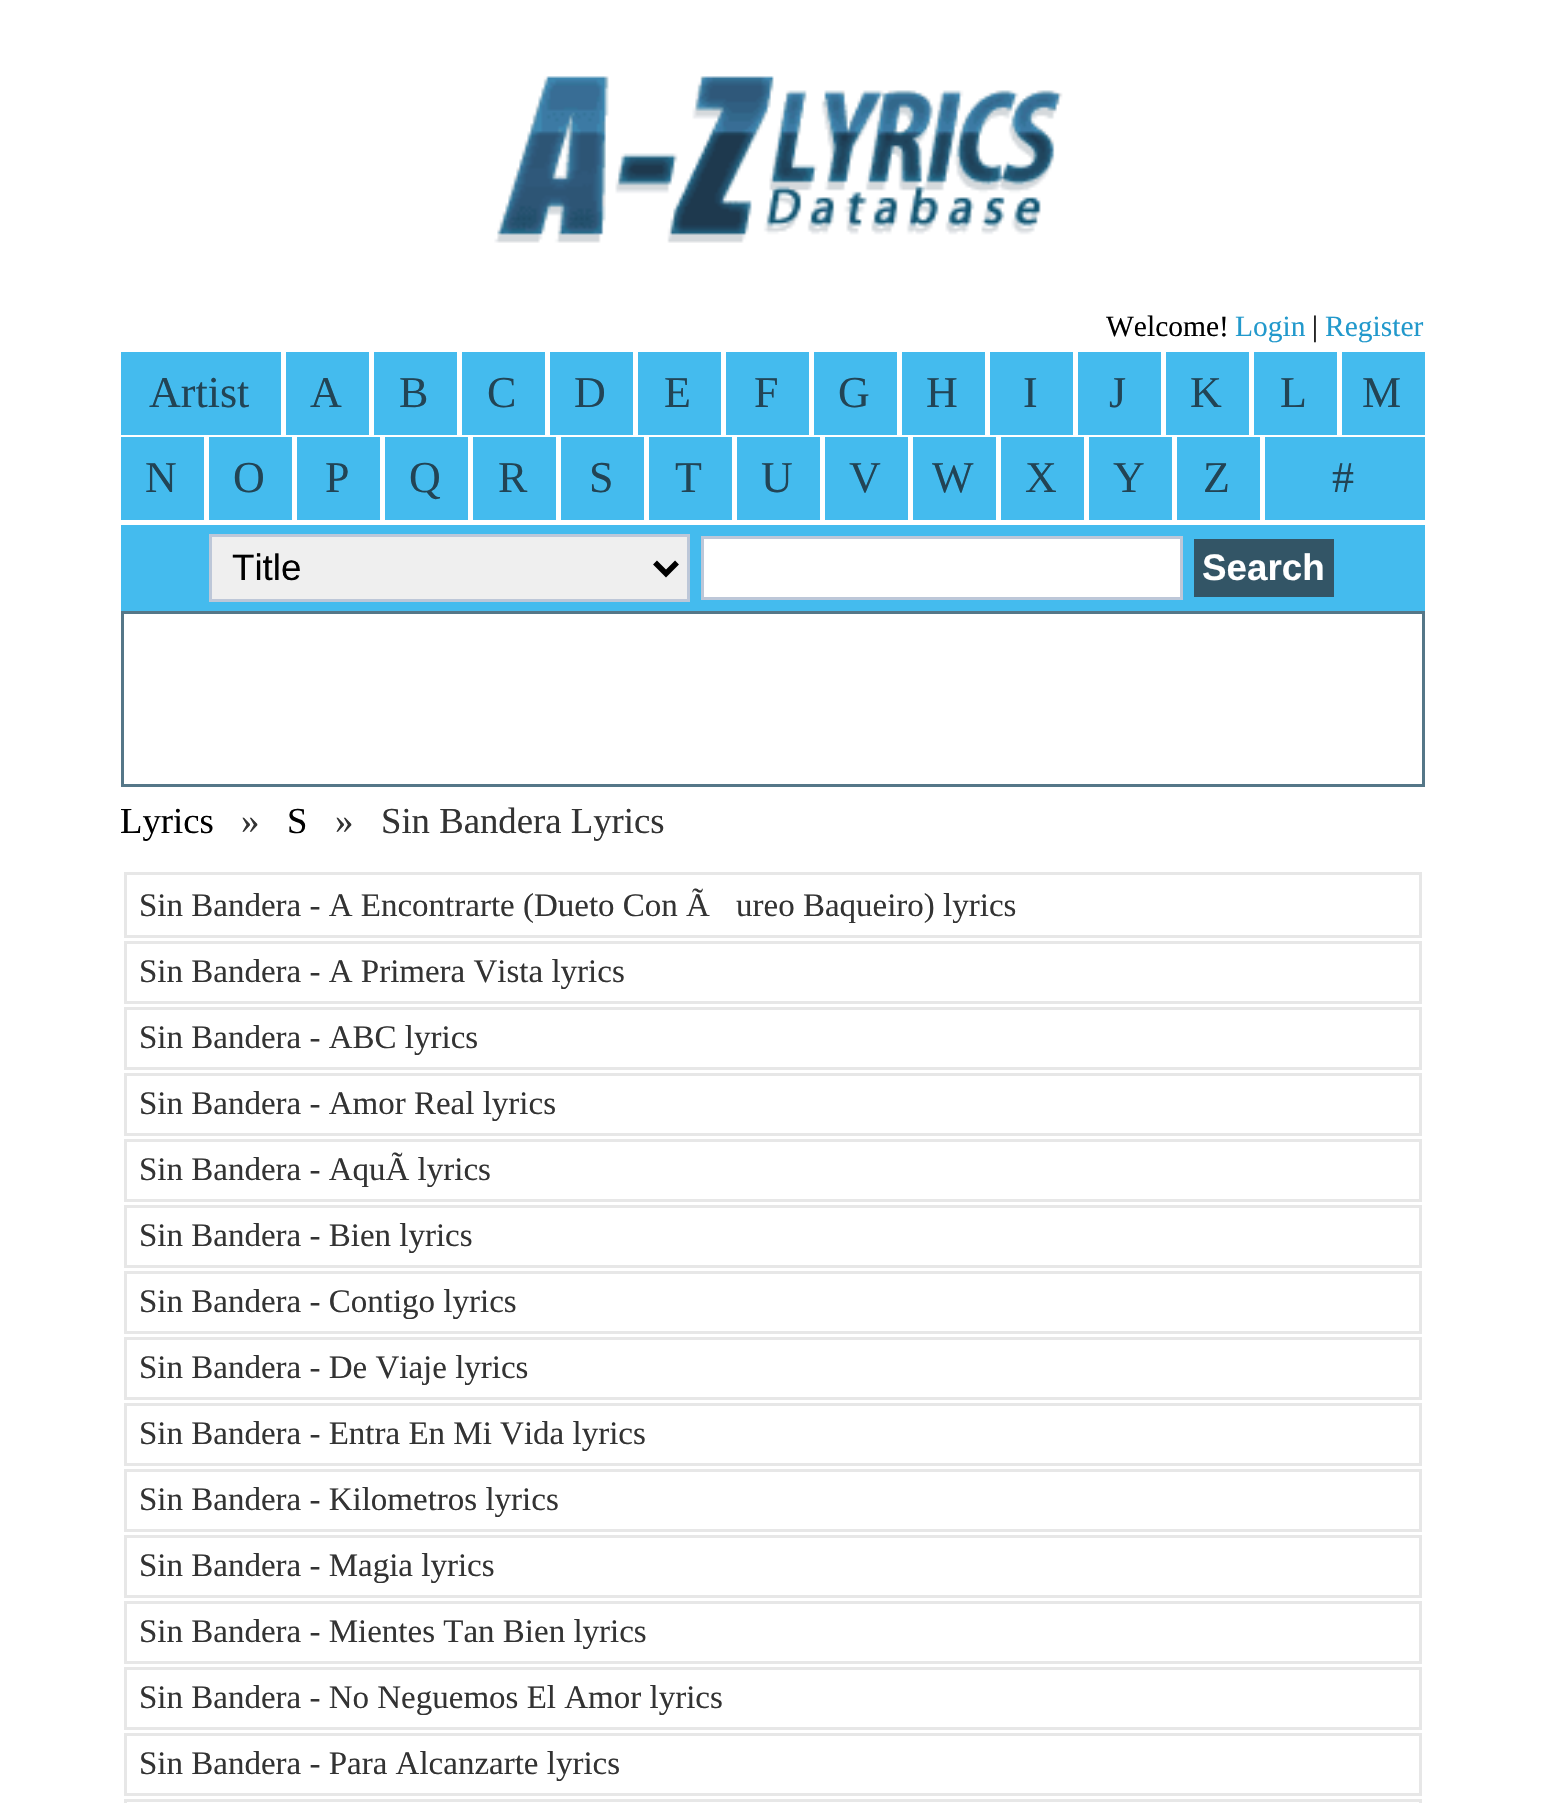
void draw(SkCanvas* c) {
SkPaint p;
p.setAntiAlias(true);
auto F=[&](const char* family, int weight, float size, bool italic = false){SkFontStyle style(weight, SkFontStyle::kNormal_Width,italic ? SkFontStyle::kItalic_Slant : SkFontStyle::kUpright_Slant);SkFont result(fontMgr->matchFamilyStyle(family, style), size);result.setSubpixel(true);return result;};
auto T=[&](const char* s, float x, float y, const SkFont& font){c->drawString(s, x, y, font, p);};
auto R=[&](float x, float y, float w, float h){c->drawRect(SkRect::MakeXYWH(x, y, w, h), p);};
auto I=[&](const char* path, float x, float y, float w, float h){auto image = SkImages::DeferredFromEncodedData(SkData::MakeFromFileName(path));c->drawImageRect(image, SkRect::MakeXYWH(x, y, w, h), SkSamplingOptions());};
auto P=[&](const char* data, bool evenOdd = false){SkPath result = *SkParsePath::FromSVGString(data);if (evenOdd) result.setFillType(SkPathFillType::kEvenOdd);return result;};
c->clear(0xffffffff);
I("1.png",494,76,569,167);
auto f1 = F("Liberation Serif",400,29.5);
p.setColor(0xff000000);
T("Welcome!",1106,336,f1);
p.setColor(0xff2299cc);
T("Login",1235,336,f1);
p.setColor(0xff000000);
T("|",1312,336,f1);
p.setColor(0xff2299cc);
T("Register",1325,336,f1);
p.setColor(0xff44bbee);
R(121,352,160,83);
auto f2 = F("Liberation Serif",400,44);
p.setColor(0xff224455);
T("Artist",149,407,f2);
p.setColor(0xff44bbee);
R(286,352,83,83);
p.setColor(0xff224455);
T("A",310,407,f2);
p.setColor(0xff44bbee);
R(374,352,83,83);
p.setColor(0xff224455);
T("B",399,407,f2);
p.setColor(0xff44bbee);
R(462,352,83,83);
p.setColor(0xff224455);
T("C",487,407,f2);
p.setColor(0xff44bbee);
R(550,352,83,83);
p.setColor(0xff224455);
T("D",574,407,f2);
p.setColor(0xff44bbee);
R(638,352,83,83);
p.setColor(0xff224455);
T("E",664,407,f2);
p.setColor(0xff44bbee);
R(726,352,83,83);
p.setColor(0xff224455);
T("F",754,407,f2);
p.setColor(0xff44bbee);
R(814,352,83,83);
p.setColor(0xff224455);
T("G",838,407,f2);
p.setColor(0xff44bbee);
R(902,352,83,83);
p.setColor(0xff224455);
T("H",926,407,f2);
p.setColor(0xff44bbee);
R(990,352,83,83);
p.setColor(0xff224455);
T("I",1023,407,f2);
p.setColor(0xff44bbee);
R(1078,352,83,83);
p.setColor(0xff224455);
T("J",1109,407,f2);
p.setColor(0xff44bbee);
R(1166,352,83,83);
p.setColor(0xff224455);
T("K",1190,407,f2);
p.setColor(0xff44bbee);
R(1254,352,83,83);
p.setColor(0xff224455);
T("L",1280,407,f2);
p.setColor(0xff44bbee);
R(1342,352,83,83);
p.setColor(0xff224455);
T("M",1362,407,f2);
p.setColor(0xff44bbee);
R(121,437,83,83);
p.setColor(0xff224455);
T("N",145,492,f2);
p.setColor(0xff44bbee);
R(209,437,83,83);
p.setColor(0xff224455);
T("O",233,492,f2);
p.setColor(0xff44bbee);
R(297,437,83,83);
p.setColor(0xff224455);
T("P",325,492,f2);
p.setColor(0xff44bbee);
R(385,437,83,83);
p.setColor(0xff224455);
T("Q",409,492,f2);
p.setColor(0xff44bbee);
R(473,437,83,83);
p.setColor(0xff224455);
T("R",498,492,f2);
p.setColor(0xff44bbee);
R(561,437,83,83);
p.setColor(0xff224455);
T("S",589,492,f2);
p.setColor(0xff44bbee);
R(649,437,83,83);
p.setColor(0xff224455);
T("T",675,492,f2);
p.setColor(0xff44bbee);
R(737,437,83,83);
p.setColor(0xff224455);
T("U",761,492,f2);
p.setColor(0xff44bbee);
R(825,437,83,83);
p.setColor(0xff224455);
T("V",849,492,f2);
p.setColor(0xff44bbee);
R(913,437,83,83);
p.setColor(0xff224455);
T("W",932,492,f2);
p.setColor(0xff44bbee);
R(1001,437,83,83);
p.setColor(0xff224455);
T("X",1025,492,f2);
p.setColor(0xff44bbee);
R(1089,437,83,83);
p.setColor(0xff224455);
T("Y",1113,492,f2);
p.setColor(0xff44bbee);
R(1177,437,83,83);
p.setColor(0xff224455);
T("Z",1203,492,f2);
p.setColor(0xff44bbee);
R(1265,437,160,83);
p.setColor(0xff224455);
T("#",1332,492,f2);
p.setColor(0xff44bbee);
R(121,525,1304,86);
p.setColor(0xffefefef);
c->drawRect(SkRect::MakeXYWH(210.5,535.5,478,65),p);
p.setStroke(true);
p.setStrokeWidth(3);
p.setColor(0xffbdc7d8);
c->drawRect(SkRect::MakeXYWH(210.5,535.5,478,65),p);
p.setStrokeWidth(5.5);
p.setColor(0xff000000);
c->drawPath(P("M655 562.5l11 11l11-11"),p);
auto f3 = F("Liberation Sans",400,36.75);
p.setStroke(false);
T("Title",232,580,f3);
p.setColor(0xffffffff);
c->drawRect(SkRect::MakeXYWH(702.5,537.5,479,61),p);
p.setStroke(true);
p.setStrokeWidth(3);
p.setColor(0xffbdc7d8);
c->drawRect(SkRect::MakeXYWH(702.5,537.5,479,61),p);
p.setStroke(false);
p.setColor(0xff335566);
R(1194,539,140,58);
auto f4 = F("Liberation Sans",700,36.75);
p.setColor(0xffffffff);
T("Search",1202,580,f4);
p.setStroke(true);
p.setColor(0xff557788);
c->drawRect(SkRect::MakeXYWH(122.5,612.5,1301,173),p);
auto f5 = F("Liberation Serif",400,36.75);
p.setStroke(false);
p.setColor(0xff000000);
T("Lyrics",120,833,f5);
p.setColor(0xff333333);
T("»",241,833,f5);
p.setColor(0xff000000);
T("S",287,833,f5);
p.setColor(0xff333333);
T("»   Sin Bandera Lyrics",335,833,f5);
p.setStroke(true);
p.setColor(0xffe7e7e7);
c->drawRect(SkRect::MakeXYWH(125.5,873.5,1295,63),p);
auto f6 = F("Liberation Serif",400,33);
p.setStroke(false);
p.setColor(0xff333333);
T("Sin Bandera - A Encontrarte (Dueto Con Ã",139,916,f6);
T("ureo Baqueiro) lyrics",736,916,f6);
p.setStroke(true);
p.setColor(0xffe7e7e7);
c->drawRect(SkRect::MakeXYWH(125.5,942.5,1295,60),p);
p.setStroke(false);
p.setColor(0xff333333);
T("Sin Bandera - A Primera Vista lyrics",139,982,f6);
p.setStroke(true);
p.setColor(0xffe7e7e7);
c->drawRect(SkRect::MakeXYWH(125.5,1008.5,1295,60),p);
p.setStroke(false);
p.setColor(0xff333333);
T("Sin Bandera - ABC lyrics",139,1048,f6);
p.setStroke(true);
p.setColor(0xffe7e7e7);
c->drawRect(SkRect::MakeXYWH(125.5,1074.5,1295,60),p);
p.setStroke(false);
p.setColor(0xff333333);
T("Sin Bandera - Amor Real lyrics",139,1114,f6);
p.setStroke(true);
p.setColor(0xffe7e7e7);
c->drawRect(SkRect::MakeXYWH(125.5,1140.5,1295,60),p);
p.setStroke(false);
p.setColor(0xff333333);
T("Sin Bandera - AquÃ lyrics",139,1180,f6);
p.setStroke(true);
p.setColor(0xffe7e7e7);
c->drawRect(SkRect::MakeXYWH(125.5,1206.5,1295,60),p);
p.setStroke(false);
p.setColor(0xff333333);
T("Sin Bandera - Bien lyrics",139,1246,f6);
p.setStroke(true);
p.setColor(0xffe7e7e7);
c->drawRect(SkRect::MakeXYWH(125.5,1272.5,1295,60),p);
p.setStroke(false);
p.setColor(0xff333333);
T("Sin Bandera - Contigo lyrics",139,1312,f6);
p.setStroke(true);
p.setColor(0xffe7e7e7);
c->drawRect(SkRect::MakeXYWH(125.5,1338.5,1295,60),p);
p.setStroke(false);
p.setColor(0xff333333);
T("Sin Bandera - De Viaje lyrics",139,1378,f6);
p.setStroke(true);
p.setColor(0xffe7e7e7);
c->drawRect(SkRect::MakeXYWH(125.5,1404.5,1295,60),p);
p.setStroke(false);
p.setColor(0xff333333);
T("Sin Bandera - Entra En Mi Vida lyrics",139,1444,f6);
p.setStroke(true);
p.setColor(0xffe7e7e7);
c->drawRect(SkRect::MakeXYWH(125.5,1470.5,1295,60),p);
p.setStroke(false);
p.setColor(0xff333333);
T("Sin Bandera - Kilometros lyrics",139,1510,f6);
p.setStroke(true);
p.setColor(0xffe7e7e7);
c->drawRect(SkRect::MakeXYWH(125.5,1536.5,1295,60),p);
p.setStroke(false);
p.setColor(0xff333333);
T("Sin Bandera - Magia lyrics",139,1576,f6);
p.setStroke(true);
p.setColor(0xffe7e7e7);
c->drawRect(SkRect::MakeXYWH(125.5,1602.5,1295,60),p);
p.setStroke(false);
p.setColor(0xff333333);
T("Sin Bandera - Mientes Tan Bien lyrics",139,1642,f6);
p.setStroke(true);
p.setColor(0xffe7e7e7);
c->drawRect(SkRect::MakeXYWH(125.5,1668.5,1295,60),p);
p.setStroke(false);
p.setColor(0xff333333);
T("Sin Bandera - No Neguemos El Amor lyrics",139,1708,f6);
p.setStroke(true);
p.setColor(0xffe7e7e7);
c->drawRect(SkRect::MakeXYWH(125.5,1734.5,1295,60),p);
p.setStroke(false);
p.setColor(0xff333333);
T("Sin Bandera - Para Alcanzarte lyrics",139,1774,f6);
p.setStroke(true);
p.setColor(0xffe7e7e7);
c->drawRect(SkRect::MakeXYWH(125.5,1800.5,1295,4),p);
}
